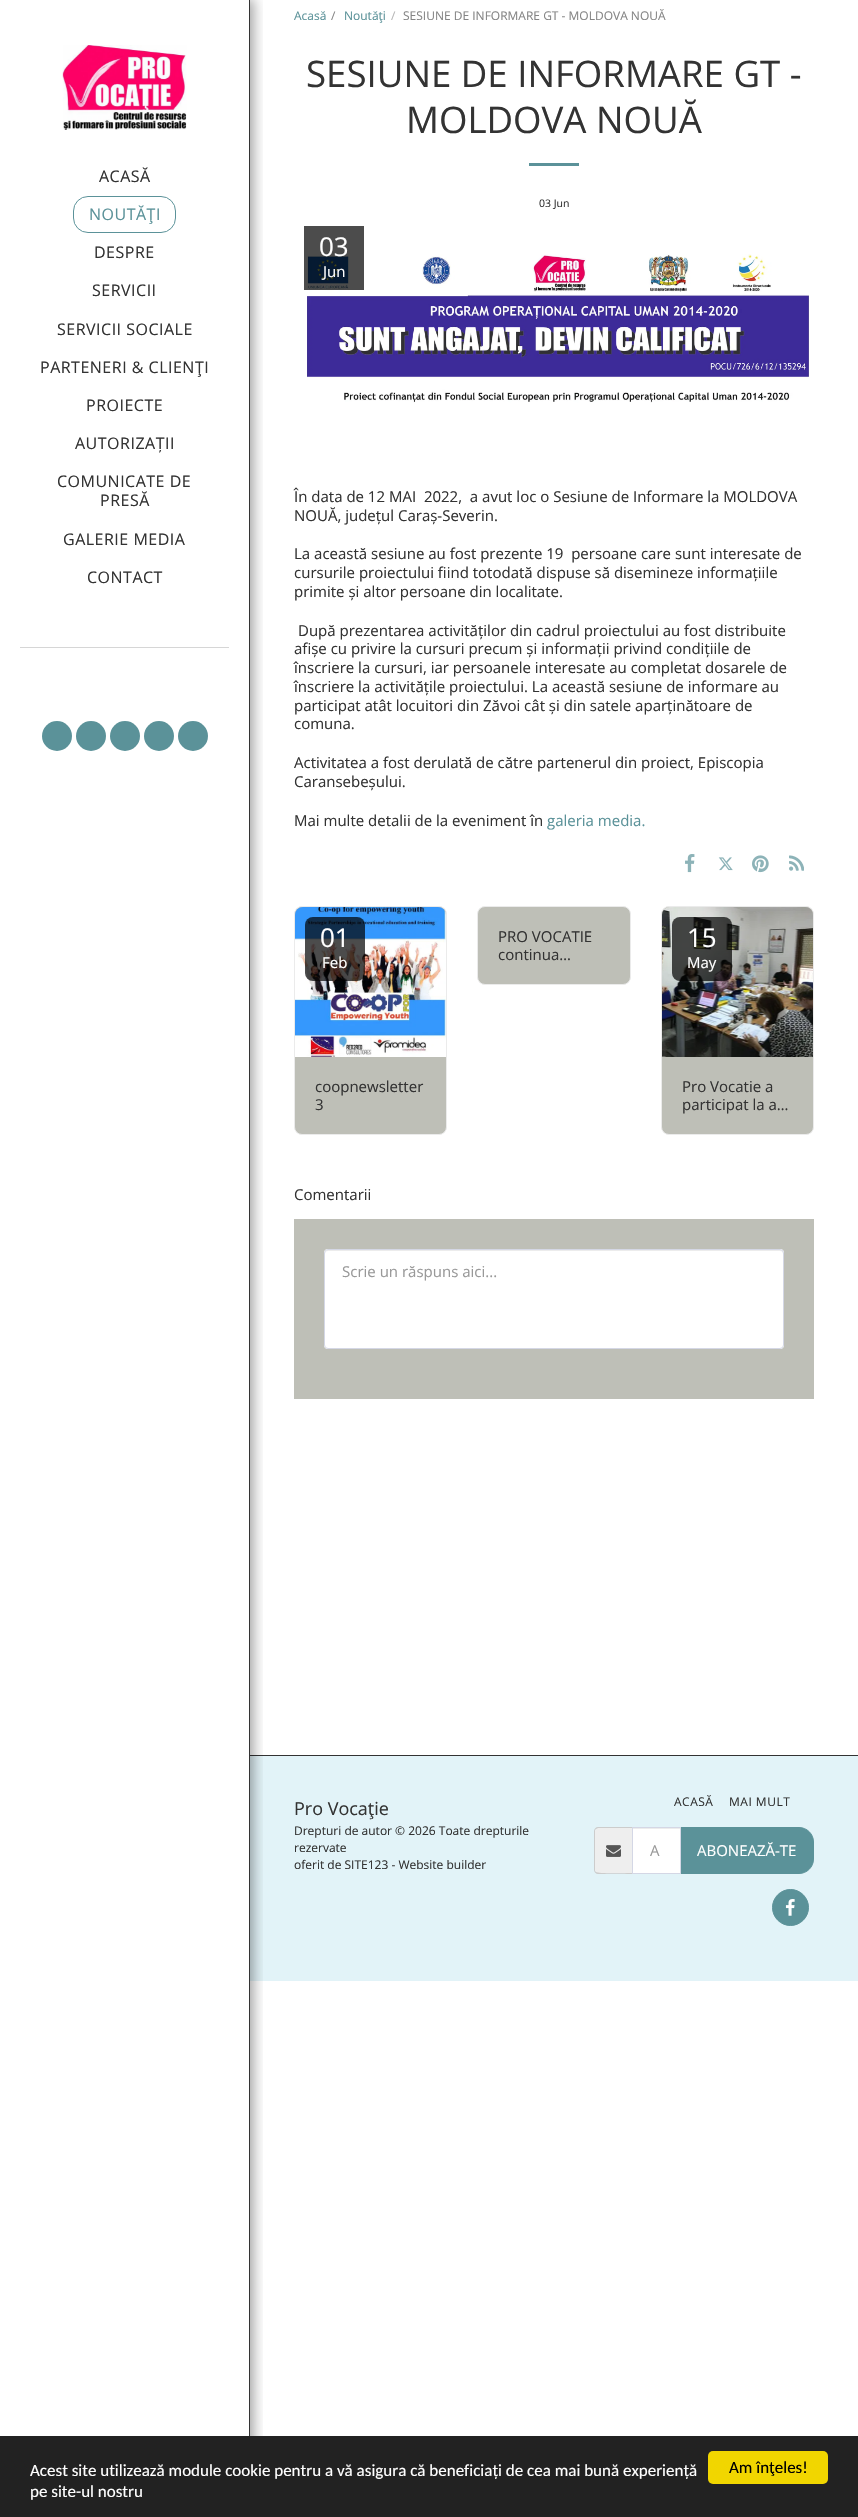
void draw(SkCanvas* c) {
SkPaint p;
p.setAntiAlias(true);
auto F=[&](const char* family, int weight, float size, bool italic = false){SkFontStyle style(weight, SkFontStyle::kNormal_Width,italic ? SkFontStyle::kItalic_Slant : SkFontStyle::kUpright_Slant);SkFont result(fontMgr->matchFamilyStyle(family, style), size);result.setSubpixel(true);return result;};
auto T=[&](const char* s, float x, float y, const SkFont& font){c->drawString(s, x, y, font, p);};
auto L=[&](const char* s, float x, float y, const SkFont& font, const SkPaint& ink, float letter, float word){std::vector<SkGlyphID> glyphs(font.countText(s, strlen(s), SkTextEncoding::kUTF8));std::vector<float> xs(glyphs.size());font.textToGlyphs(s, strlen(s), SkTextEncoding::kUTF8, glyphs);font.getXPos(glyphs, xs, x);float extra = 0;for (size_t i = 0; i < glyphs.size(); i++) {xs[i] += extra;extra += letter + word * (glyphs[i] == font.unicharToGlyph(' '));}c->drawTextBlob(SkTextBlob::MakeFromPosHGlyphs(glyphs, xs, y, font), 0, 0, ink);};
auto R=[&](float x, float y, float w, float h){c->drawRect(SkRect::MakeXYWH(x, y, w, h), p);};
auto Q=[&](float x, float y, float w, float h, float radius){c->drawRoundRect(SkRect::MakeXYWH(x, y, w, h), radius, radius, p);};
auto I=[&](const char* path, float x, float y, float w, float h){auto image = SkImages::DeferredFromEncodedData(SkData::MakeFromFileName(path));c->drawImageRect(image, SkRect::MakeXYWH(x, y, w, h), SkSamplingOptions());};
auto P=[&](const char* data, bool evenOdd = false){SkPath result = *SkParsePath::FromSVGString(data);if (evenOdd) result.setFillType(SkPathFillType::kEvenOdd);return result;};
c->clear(0xffffffff);
p.setColor(0xffe2f3f8);
R(250,1756,608,225);
p.setColor(0xff333333);
R(250,1755,608,1);
c->save();
c->clipRect(SkRect::MakeXYWH(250,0,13,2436));
p.setColor(0x59000000);
p.setMaskFilter(SkMaskFilter::MakeBlur(kNormal_SkBlurStyle, 6));
c->drawRect(SkRect::MakeXYWH(0,-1,254,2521),p);
p.setMaskFilter(nullptr);
c->restore();
p.setColor(0xff333333);
R(249,0,1,2436);
I("1.png",62,45,125,85);
auto f1 = F("Open Sans",400,16);
L("ACASĂ",99,182,f1,p,.5,0);
p.setStroke(true);
p.setStrokeWidth(1);
p.setColor(0xff5b9299);
c->drawRoundRect(SkRect::MakeXYWH(73.5,196.5,102,36),14.5,14.5,p);
p.setStroke(false);
L("NOUTĂŢI",89,220,f1,p,.5,0);
p.setColor(0xff333333);
L("DESPRE",94,258,f1,p,.5,0);
L("SERVICII",92,296,f1,p,.5,0);
L("SERVICII SOCIALE",57,335,f1,p,.5,0);
L("PARTENERI & CLIENŢI",40,373,f1,p,.5,0);
L("PROIECTE",86,411,f1,p,.5,0);
L("AUTORIZAȚII",75,449,f1,p,.5,0);
L("COMUNICATE DE",57,487,f1,p,.5,0);
L("PRESĂ",100,506,f1,p,.5,0);
L("GALERIE MEDIA",63,545,f1,p,.5,0);
L("CONTACT",87,583,f1,p,.5,0);
p.setColor(0xffd6d6d6);
R(20,647,209,1);
p.setColor(0xff5b9299);
c->drawCircle(57,736,15,p);
c->drawCircle(91,736,15,p);
c->drawCircle(125,736,15,p);
c->drawCircle(159,736,15,p);
c->drawCircle(193,736,15,p);
auto f2 = F("Open Sans",400,12);
T("Acasă",294,20,f2);
p.setColor(0xff858585);
T("/",331,20,f2);
p.setColor(0xff5b9299);
T("Noutăţi",344,20,f2);
p.setColor(0xffb6b6b6);
T("/",391,20,f2);
p.setColor(0xff858585);
T("SESIUNE DE INFORMARE GT - MOLDOVA NOUĂ",403,20,f2);
auto f3 = F("Open Sans",400,36.6);
p.setColor(0xff333333);
T("SESIUNE DE INFORMARE GT -",306,87,f3);
T("MOLDOVA NOUĂ",406,133,f3);
p.setColor(0xff5b9299);
R(529,163,50,3);
auto f4 = F("Open Sans",400,10.5);
p.setColor(0xff333333);
T("03 Jun",539,207,f4);
I("2.png",307,254,502,149);
p.setColor(0xb3000000);
R(304,226,60,64);
auto f5 = F("Open Sans",400,26);
p.setColor(0xffffffff);
T("03",319,256,f5);
auto f6 = F("Open Sans",400,15);
T("Jun",323,277,f6);
p.setColor(0xff333333);
T("În data de 12 MAI  2022,  a avut loc o Sesiune de Informare la MOLDOVA",294,502,f6);
T("NOUĂ, județul Caraș-Severin.",294,521,f6);
T("La această sesiune au fost prezente 19  persoane care sunt interesate de",294,559,f6);
T("cursurile proiectului fiind totodată dispuse să disemineze informațiile",294,578,f6);
T("primite și altor persoane din localitate.",294,597,f6);
T("După prezentarea activităților din cadrul proiectului au fost distribuite",298,636,f6);
T("afișe cu privire la cursuri precum și informații privind condițiile de",294,654,f6);
T("înscriere la cursuri, iar persoanele interesate au completat dosarele de",294,673,f6);
T("înscriere la activitățile proiectului. La această sesiune de informare au",294,692,f6);
T("participat atât locuitori din Zăvoi cât și din satele aparținătoare de",294,711,f6);
T("comuna.",294,729,f6);
T("Activitatea a fost derulată de către partenerul din proiect, Episcopia",294,768,f6);
T("Caransebeșului.",294,787,f6);
T("Mai multe detalii de la eveniment în",294,826,f6);
p.setColor(0xff5b9299);
T("galeria media.",547,826,f6);
I("3.png",685,854,10,19);
I("4.png",718,857,15,14);
I("5.png",752,855,17,18);
I("6.png",789,855,15,16);
p.setColor(0xffbebfb7);
c->drawRoundRect(SkRect::MakeXYWH(294.5,906.5,152,228),7.5,7.5,p);
p.setStroke(true);
p.setColor(0xffebebeb);
c->drawRoundRect(SkRect::MakeXYWH(294.5,906.5,152,228),7.5,7.5,p);
I("7.png",295,907,151,150);
p.setStroke(false);
p.setColor(0xb3000000);
Q(305,917,60,64,8);
p.setColor(0xffffffff);
T("01",320,947,f5);
T("Feb",322,968,f6);
p.setColor(0xff333333);
T("coopnewsletter",315,1092,f6);
T("3",315,1110,f6);
p.setColor(0xffbebfb7);
c->drawRoundRect(SkRect::MakeXYWH(477.5,906.5,153,78),7.5,7.5,p);
p.setStroke(true);
p.setColor(0xffebebeb);
c->drawRoundRect(SkRect::MakeXYWH(477.5,906.5,153,78),7.5,7.5,p);
p.setStroke(false);
p.setColor(0xff333333);
T("PRO VOCATIE",498,942,f6);
T("continua…",498,960,f6);
p.setColor(0xffbebfb7);
c->drawRoundRect(SkRect::MakeXYWH(661.5,906.5,152,228),7.5,7.5,p);
p.setStroke(true);
p.setColor(0xffebebeb);
c->drawRoundRect(SkRect::MakeXYWH(661.5,906.5,152,228),7.5,7.5,p);
I("8.png",662,907,151,150);
p.setStroke(false);
p.setColor(0xb3000000);
Q(672,917,60,64,8);
p.setColor(0xffffffff);
T("15",687,947,f5);
T("May",687,968,f6);
p.setColor(0xff333333);
T("Pro Vocatie a",682,1092,f6);
T("participat la a…",682,1110,f6);
T("Comentarii",294,1200,f6);
p.setColor(0xffbebfb7);
R(294,1219,520,180);
p.setColor(0xffffffff);
Q(324,1249,460,100,4);
p.setColor(0xffececec);
c->drawPath(P("M328 1251h452c2 0 3 1 3 3c0-2 0-4-2-4h-454l-2 2v2c0-2 1-3 3-3z"),p);
p.setStroke(true);
p.setColor(0xffd4d7e5);
c->drawRoundRect(SkRect::MakeXYWH(324.5,1249.5,459,99),3.5,3.5,p);
p.setStroke(false);
p.setColor(0xff999999);
T("Scrie un răspuns aici...",342,1277,f6);
auto f7 = F("Open Sans",400,18);
p.setColor(0xff333333);
T("Pro Vocaţie",294,1815,f7);
T("Drepturi de autor © 2026 Toate drepturile",294,1835,f2);
T("rezervate",294,1852,f2);
T("oferit de SITE123 - Website builder",294,1869,f2);
L("ACASĂ",674,1806,f2,p,.5,0);
L("MAI MULT",729,1806,f2,p,.5,0);
p.setColor(0xffeeeeee);
c->drawPath(P("M598 1828h34v45h-34c-1.5 0-3-1.5-3-3v-39c0-1.5 1.5-3 3-3z"),p);
p.setColor(0xffcccccc);
c->drawPath(P("M598 1827h34v47h-34c-2 0-4-2-4-4v-39c0-2 2-4 4-4zm0 1h34v45c-5 0-34 1-36-1l-1-1v-41l1-1z",true),p);
I("9.png",606,1845,15,12);
p.setColor(0xffffffff);
R(633,1829,47,44);
p.setColor(0xffececec);
R(633,1828,47,1);
p.setColor(0xff5b9299);
c->drawPath(P("M680.5 1827.5h118.5c8 0 14.5 6.5 14.5 14.5v17c0 8-6.5 14.5-14.5 14.5h-118.5z"),p);
p.setStroke(true);
c->drawPath(P("M680.5 1827.5h118.5c8 0 14.5 6.5 14.5 14.5v17c0 8-6.5 14.5-14.5 14.5h-118.5z"),p);
p.setColor(0xffd4d7e5);
c->drawRect(SkRect::MakeXYWH(632.5,1827.5,48,46),p);
p.setStroke(false);
p.setColor(0xff999999);
T("A",650,1856,f6);
p.setColor(0xffffffff);
T("ABONEAZĂ-TE",697,1856,f6);
p.setColor(0xff5b9299);
c->drawCircle(790.5,1907.5,18,p);
p.setStroke(true);
c->drawCircle(790.5,1907.5,18,p);
I("10.png",785,1899,10,17);
p.setStroke(false);
p.setColor(0xff222222);
R(0,2436,858,81);
auto f8 = F("Carlito",400,17);
p.setColor(0xffffffff);
T("Acest site utilizează module cookie pentru a vă asigura că beneficiați de cea mai bună experiență",30,2476,f8);
T("pe site-ul nostru",30,2497,f8);
p.setColor(0xfff1d600);
Q(708,2451,120,33,5);
p.setColor(0xff000000);
T("Am înţeles!",729,2473,f8);
}
